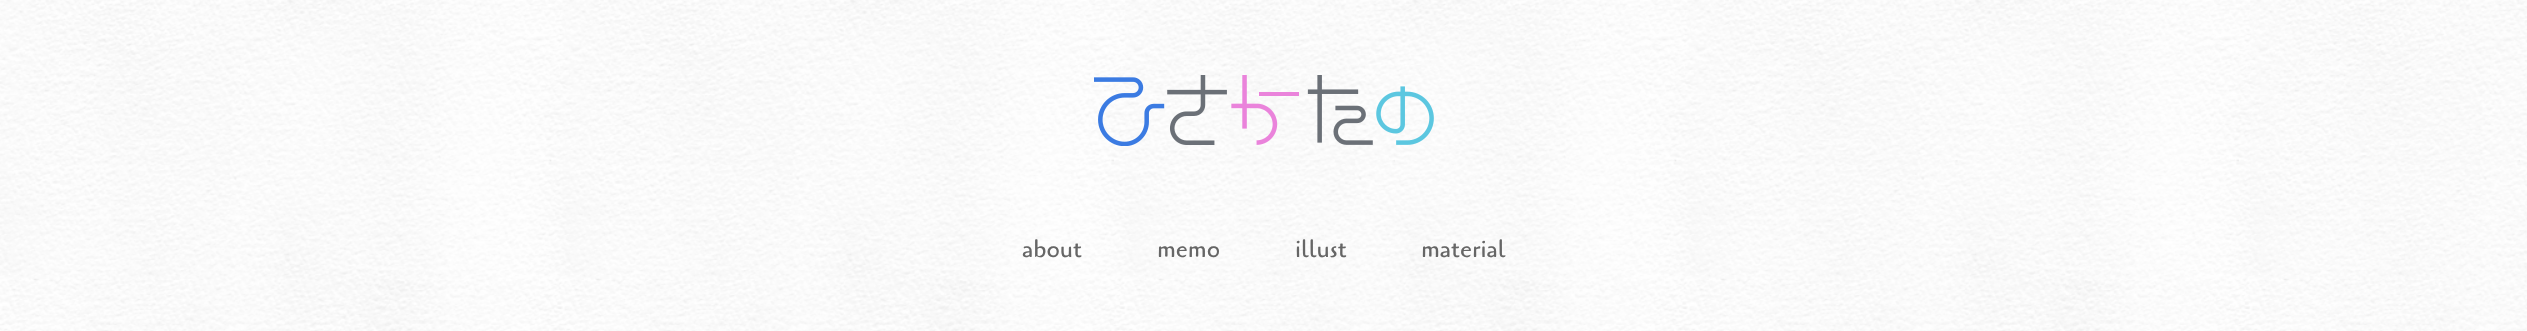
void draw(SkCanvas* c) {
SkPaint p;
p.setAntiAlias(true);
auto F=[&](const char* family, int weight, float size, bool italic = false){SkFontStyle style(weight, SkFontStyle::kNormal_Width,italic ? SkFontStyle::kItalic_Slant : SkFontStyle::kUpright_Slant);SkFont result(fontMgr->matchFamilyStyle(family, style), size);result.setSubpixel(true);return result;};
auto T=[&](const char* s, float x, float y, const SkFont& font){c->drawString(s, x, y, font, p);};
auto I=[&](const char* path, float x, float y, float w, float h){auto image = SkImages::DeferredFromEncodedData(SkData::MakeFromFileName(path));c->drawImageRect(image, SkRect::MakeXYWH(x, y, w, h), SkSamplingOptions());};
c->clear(0xffffffff);
I("1.png",0,0,2527,331);
I("2.png",1094,75,340,71);
auto f1 = F("Cagliostro",400,24);
p.setColor(0xff666666);
T("about",1022,257,f1);
T("memo",1157,257,f1);
T("illust",1295,257,f1);
T("material",1421,257,f1);
}
